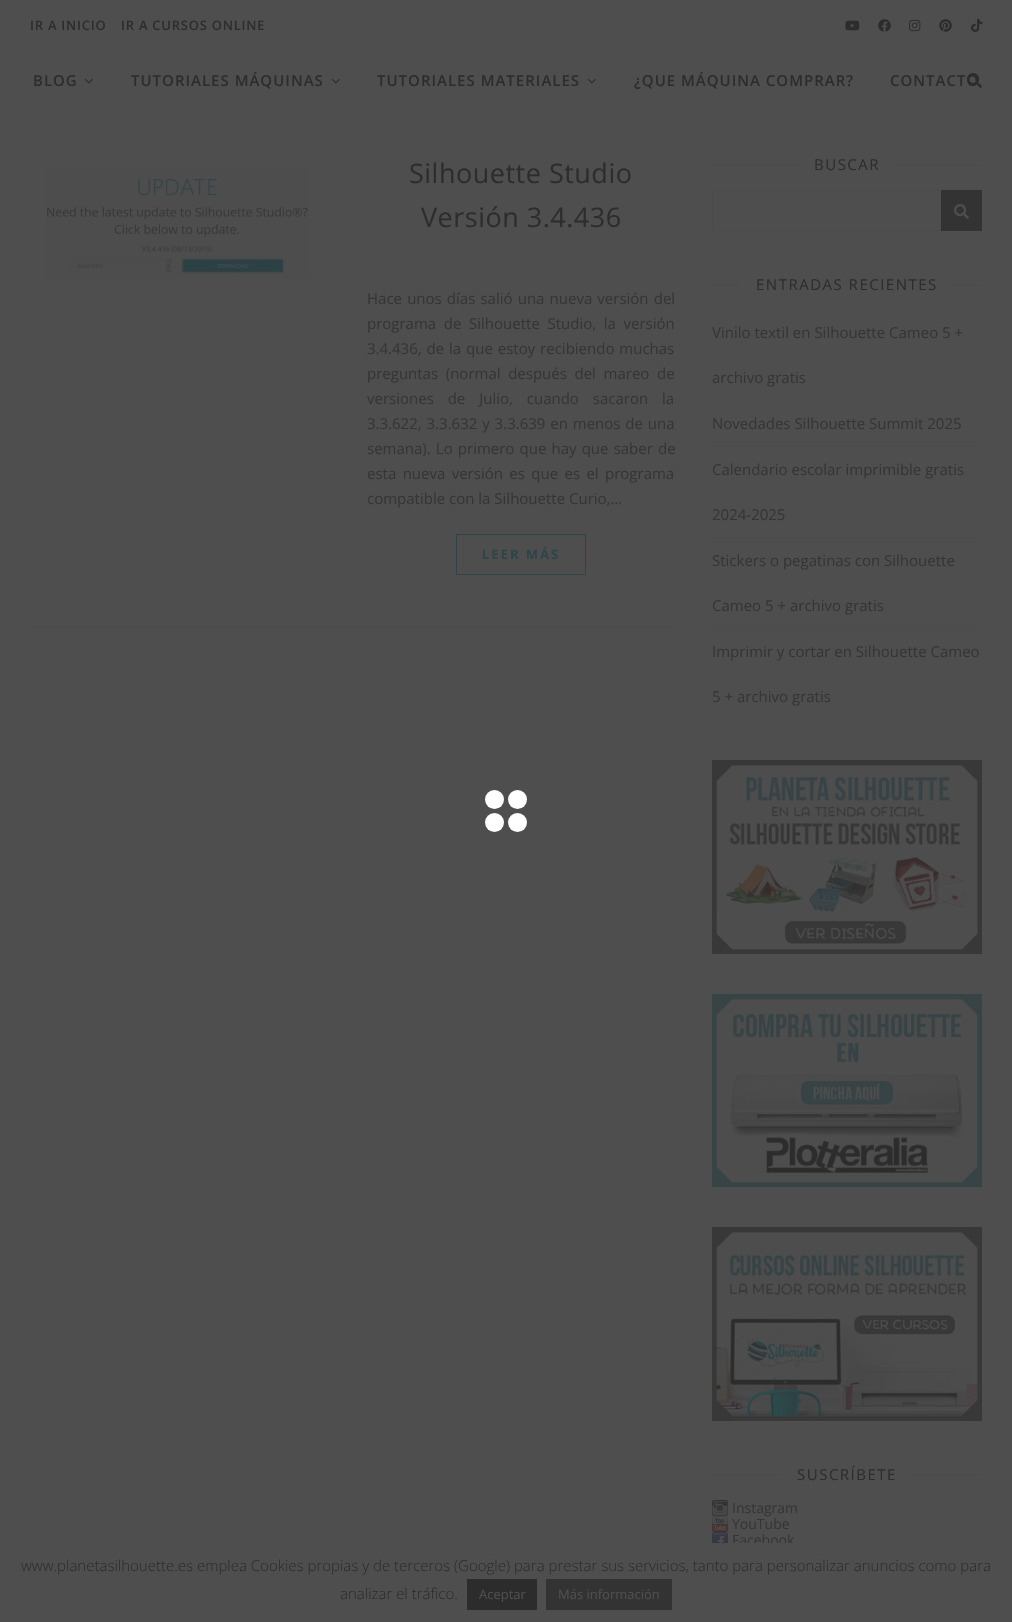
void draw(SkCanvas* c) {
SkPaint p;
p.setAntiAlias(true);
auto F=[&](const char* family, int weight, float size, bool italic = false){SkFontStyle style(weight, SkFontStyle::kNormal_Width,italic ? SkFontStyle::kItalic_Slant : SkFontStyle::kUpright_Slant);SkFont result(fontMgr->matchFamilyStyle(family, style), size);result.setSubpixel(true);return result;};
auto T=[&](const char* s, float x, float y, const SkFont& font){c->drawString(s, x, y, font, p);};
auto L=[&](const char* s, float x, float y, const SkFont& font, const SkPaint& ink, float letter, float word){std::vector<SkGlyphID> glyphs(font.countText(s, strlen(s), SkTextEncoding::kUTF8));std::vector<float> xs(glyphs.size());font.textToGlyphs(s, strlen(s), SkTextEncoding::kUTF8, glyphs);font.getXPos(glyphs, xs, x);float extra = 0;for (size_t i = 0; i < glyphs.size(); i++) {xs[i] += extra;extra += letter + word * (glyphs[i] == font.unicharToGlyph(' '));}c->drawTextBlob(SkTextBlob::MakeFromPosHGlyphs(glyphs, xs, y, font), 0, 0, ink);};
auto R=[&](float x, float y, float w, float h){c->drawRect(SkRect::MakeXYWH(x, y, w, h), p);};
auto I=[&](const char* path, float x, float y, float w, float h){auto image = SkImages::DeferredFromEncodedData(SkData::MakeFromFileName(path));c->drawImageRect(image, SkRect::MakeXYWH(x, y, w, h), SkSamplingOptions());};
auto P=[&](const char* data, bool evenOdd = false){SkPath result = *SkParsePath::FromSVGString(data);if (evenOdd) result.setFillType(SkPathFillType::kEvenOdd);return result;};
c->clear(0xff4e4e4e);
auto f1 = F("Open Sans",600,13);
p.setColor(0xff2d2d2d);
L("IR A INICIO",30,30,f1,p,.75,0);
L("IR A CURSOS ONLINE",121,30,f1,p,.75,0);
I("1.png",845,20,15,11);
I("2.png",878,19,13,13);
I("3.png",909,19,12,13);
I("4.png",939,19,13,13);
I("5.png",971,19,12,13);
auto f2 = F("Open Sans",600,15);
L("BLOG",33,86,f2,p,1,0);
I("6.png",84,78,9,6);
L("TUTORIALES MÁQUINAS",131,86,f2,p,1,0);
I("6.png",331,78,9,6);
L("TUTORIALES MATERIALES",377,86,f2,p,1,0);
I("6.png",587,78,9,6);
L("¿QUE MÁQUINA COMPRAR?",634,86,f2,p,1,0);
L("CONTACTO",890,86,f2,p,1,0);
I("7.png",967,73,15,15);
p.setColor(0xff4b4b4b);
R(30,626,645,1);
I("8.png",46,167,264,112);
auto f3 = F("Open Sans",400,27);
p.setColor(0xff2d2d2d);
L("Silhouette Studio",409,183,f3,p,.5,0);
L("Versión 3.4.436",421,227,f3,p,.5,0);
auto f4 = F("Open Sans",400,15);
p.setColor(0xff353535);
L("Hace unos días salió una nueva versión del",367,304,f4,p,0,1.25);
L("programa de Silhouette Studio, la versión",367,329,f4,p,0,3.75);
L("3.4.436, de la que estoy recibiendo muchas",367,354,f4,p,0,1);
L("preguntas (normal después del mareo de",367,379,f4,p,0,3.75);
L("versiones de Julio, cuando sacaron la",367,404,f4,p,0,10);
L("3.3.622, 3.3.632 y 3.3.639 en menos de una",367,429,f4,p,0,1);
L("semana). Lo primero que hay que saber de",367,454,f4,p,0,1.25);
L("esta nueva versión es que es el programa",367,479,f4,p,0,2.5);
T("compatible con la Silhouette Curio,…",367,504,f4);
p.setStroke(true);
p.setStrokeWidth(1);
p.setColor(0xff2d4448);
c->drawRect(SkRect::MakeXYWH(456.5,534.5,129,40),p);
auto f5 = F("Open Sans",700,13);
p.setStroke(false);
L("LEER MÁS",482,559,f5,p,2,0);
p.setColor(0xff4b4b4b);
R(712,165,87,1);
p.setColor(0xff2d2d2d);
L("BUSCAR",814,170,f4,p,1.5,0);
p.setColor(0xff4b4b4b);
R(895,165,87,1);
p.setStroke(true);
c->drawRect(SkRect::MakeXYWH(712.5,190.5,269,40),p);
p.setStroke(false);
p.setColor(0xff333333);
R(941,190,41,41);
I("9.png",954,204,15,15);
p.setColor(0xff4b4b4b);
R(712,285,29,1);
p.setColor(0xff2d2d2d);
L("ENTRADAS RECIENTES",756,290,f4,p,1.5,0);
p.setColor(0xff4b4b4b);
R(953,285,29,1);
p.setStroke(true);
p.setPathEffect(SkDashPathEffect::Make({{1,1}}, 0));
c->drawPath(P("M712 400.5h270"),p);
p.setPathEffect(nullptr);
p.setStroke(false);
p.setColor(0xff353535);
T("Vinilo textil en Silhouette Cameo 5 +",712,338,f4);
T("archivo gratis",712,383,f4);
p.setStroke(true);
p.setColor(0xff4b4b4b);
p.setPathEffect(SkDashPathEffect::Make({{1,1}}, 0));
c->drawPath(P("M712 446.5h270"),p);
p.setPathEffect(nullptr);
p.setStroke(false);
p.setColor(0xff353535);
T("Novedades Silhouette Summit 2025",712,429,f4);
p.setStroke(true);
p.setColor(0xff4b4b4b);
p.setPathEffect(SkDashPathEffect::Make({{1,1}}, 0));
c->drawPath(P("M712 537.5h270"),p);
p.setPathEffect(nullptr);
p.setStroke(false);
p.setColor(0xff353535);
T("Calendario escolar imprimible gratis",712,475,f4);
T("2024-2025",712,520,f4);
p.setStroke(true);
p.setColor(0xff4b4b4b);
p.setPathEffect(SkDashPathEffect::Make({{1,1}}, 0));
c->drawPath(P("M712 628.5h270"),p);
p.setPathEffect(nullptr);
p.setStroke(false);
p.setColor(0xff353535);
T("Stickers o pegatinas con Silhouette",712,566,f4);
T("Cameo 5 + archivo gratis",712,611,f4);
p.setStroke(true);
p.setColor(0xff4b4b4b);
p.setPathEffect(SkDashPathEffect::Make({{1,1}}, 0));
c->drawPath(P("M712 719.5h270"),p);
p.setPathEffect(nullptr);
p.setStroke(false);
p.setColor(0xff353535);
T("Imprimir y cortar en Silhouette Cameo",712,657,f4);
T("5 + archivo gratis",712,702,f4);
I("10.png",712,760,270,194);
I("11.png",712,994,270,193);
I("12.png",712,1227,270,194);
p.setColor(0xff4b4b4b);
R(712,1474,70,1);
p.setColor(0xff2d2d2d);
L("SUSCRÍBETE",797,1480,f4,p,1.5,0);
p.setColor(0xff4b4b4b);
R(912,1474,70,1);
I("13.png",712,1500,16,16);
auto f6 = F("Open Sans",400,14);
p.setColor(0xff353535);
T("Instagram",732,1513,f6);
I("14.png",712,1516,16,16);
T("YouTube",732,1529,f6);
I("15.png",712,1532,16,11);
T("Facebook",732,1545,f6);
p.setColor(0xffffffff);
c->drawCircle(494.5,799.5,9.5,p);
c->drawCircle(517.5,799.5,9.5,p);
c->drawCircle(494.5,822.5,9.5,p);
c->drawCircle(517.5,822.5,9.5,p);
p.setColor(0xff4e4e4e);
R(733,1543,61,3);
auto f7 = F("Open Sans",300,15);
p.setColor(0xff2d2d2d);
T("www.planetasilhouette.es emplea Cookies propias y de terceros (Google) para prestar sus servicios, tanto para personalizar anuncios como para",21,1571,f7);
T("analizar el tráfico.",340,1599,f7);
p.setColor(0xff2c2c2c);
R(467,1579,70,31);
auto f8 = F("Open Sans",400,13);
p.setColor(0xff4e4e4e);
T("Aceptar",479,1599,f8);
p.setColor(0xff333333);
R(546,1579,126,31);
p.setColor(0xff4e4e4e);
T("Más información",558,1599,f8);
}
